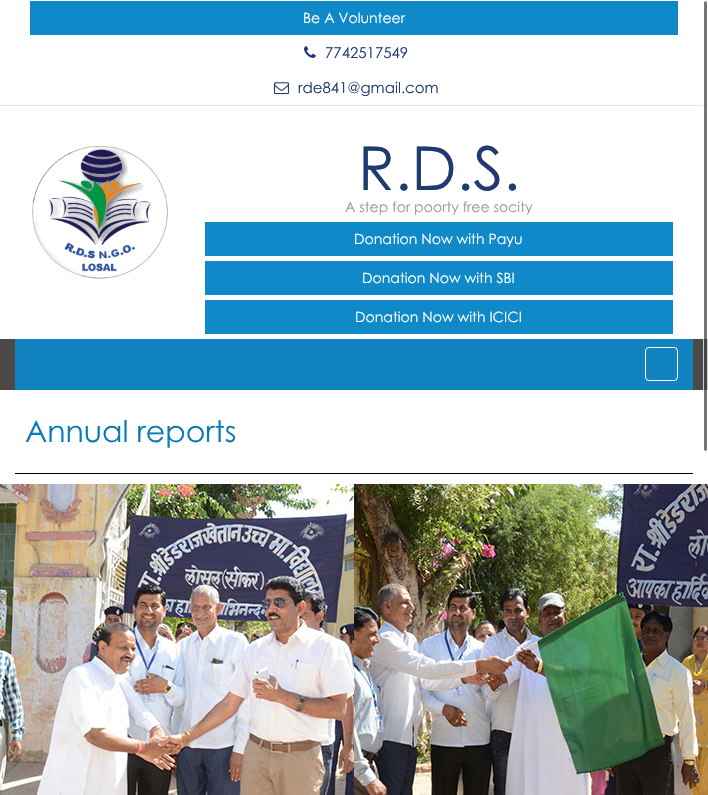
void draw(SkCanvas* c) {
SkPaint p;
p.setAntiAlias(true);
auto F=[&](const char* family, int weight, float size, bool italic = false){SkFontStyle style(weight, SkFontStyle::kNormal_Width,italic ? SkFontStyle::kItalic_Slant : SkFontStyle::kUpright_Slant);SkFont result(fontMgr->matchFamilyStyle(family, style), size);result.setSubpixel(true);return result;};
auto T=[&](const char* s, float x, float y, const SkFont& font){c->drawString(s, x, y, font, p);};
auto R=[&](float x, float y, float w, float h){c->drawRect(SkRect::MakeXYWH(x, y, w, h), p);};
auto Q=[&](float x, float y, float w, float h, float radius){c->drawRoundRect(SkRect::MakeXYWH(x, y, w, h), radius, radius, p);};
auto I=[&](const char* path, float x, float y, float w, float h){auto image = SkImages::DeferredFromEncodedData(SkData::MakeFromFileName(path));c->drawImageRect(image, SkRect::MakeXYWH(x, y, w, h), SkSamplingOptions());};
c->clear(0xffffffff);
p.setColor(0xffe6e6e6);
R(0,105,708,1);
p.setColor(0xff1089c9);
R(30,1,648,34);
auto f1 = F("Century Gothic",400,14.1);
p.setColor(0xffffffff);
T("Be A Volunteer",303,23,f1);
I("1.png",304,46,12,12);
auto f2 = F("Century Gothic",400,15);
p.setColor(0xff1f3b6f);
T("7742517549",325,58,f2);
I("2.png",274,82,15,13);
T("rde841@gmail.com",298,93,f2);
I("3.png",32,146,136,133);
auto f3 = F("Century Gothic",400,60.5);
T("R.D.S.",358,190,f3);
p.setColor(0xff989898);
T("A step for poorty free socity",345,212,f1);
p.setColor(0xff1089c9);
R(205,222,468,34);
p.setColor(0xffffffff);
T("Donation Now with Payu",354,244,f1);
p.setColor(0xff1089c9);
R(205,261,468,34);
p.setColor(0xffffffff);
T("Donation Now with SBI",362,283,f1);
p.setColor(0xff1089c9);
R(205,300,468,34);
p.setColor(0xffffffff);
T("Donation Now with ICICI",355,322,f1);
p.setColor(0xff4c4a46);
R(0,339,708,51);
p.setColor(0xff1183c1);
R(15,339,678,51);
p.setStroke(true);
p.setStrokeWidth(1);
p.setColor(0xffffffff);
c->drawRoundRect(SkRect::MakeXYWH(645.5,347.5,32,33),3.5,3.5,p);
p.setStroke(false);
p.setColor(0xff000000);
R(15,473,678,1);
auto f4 = F("Century Gothic",400,30);
p.setColor(0xff097bb7);
T("Annual reports",25,442,f4);
I("4.png",0,484,354,311);
I("5.png",354,484,354,311);
p.setColor(0xb8424242);
Q(704,1,3,450,1.5);
p.setStroke(true);
p.setColor(0xb8ffffff);
c->drawRoundRect(SkRect::MakeXYWH(703.5,.5,4,451),2,2,p);
}
